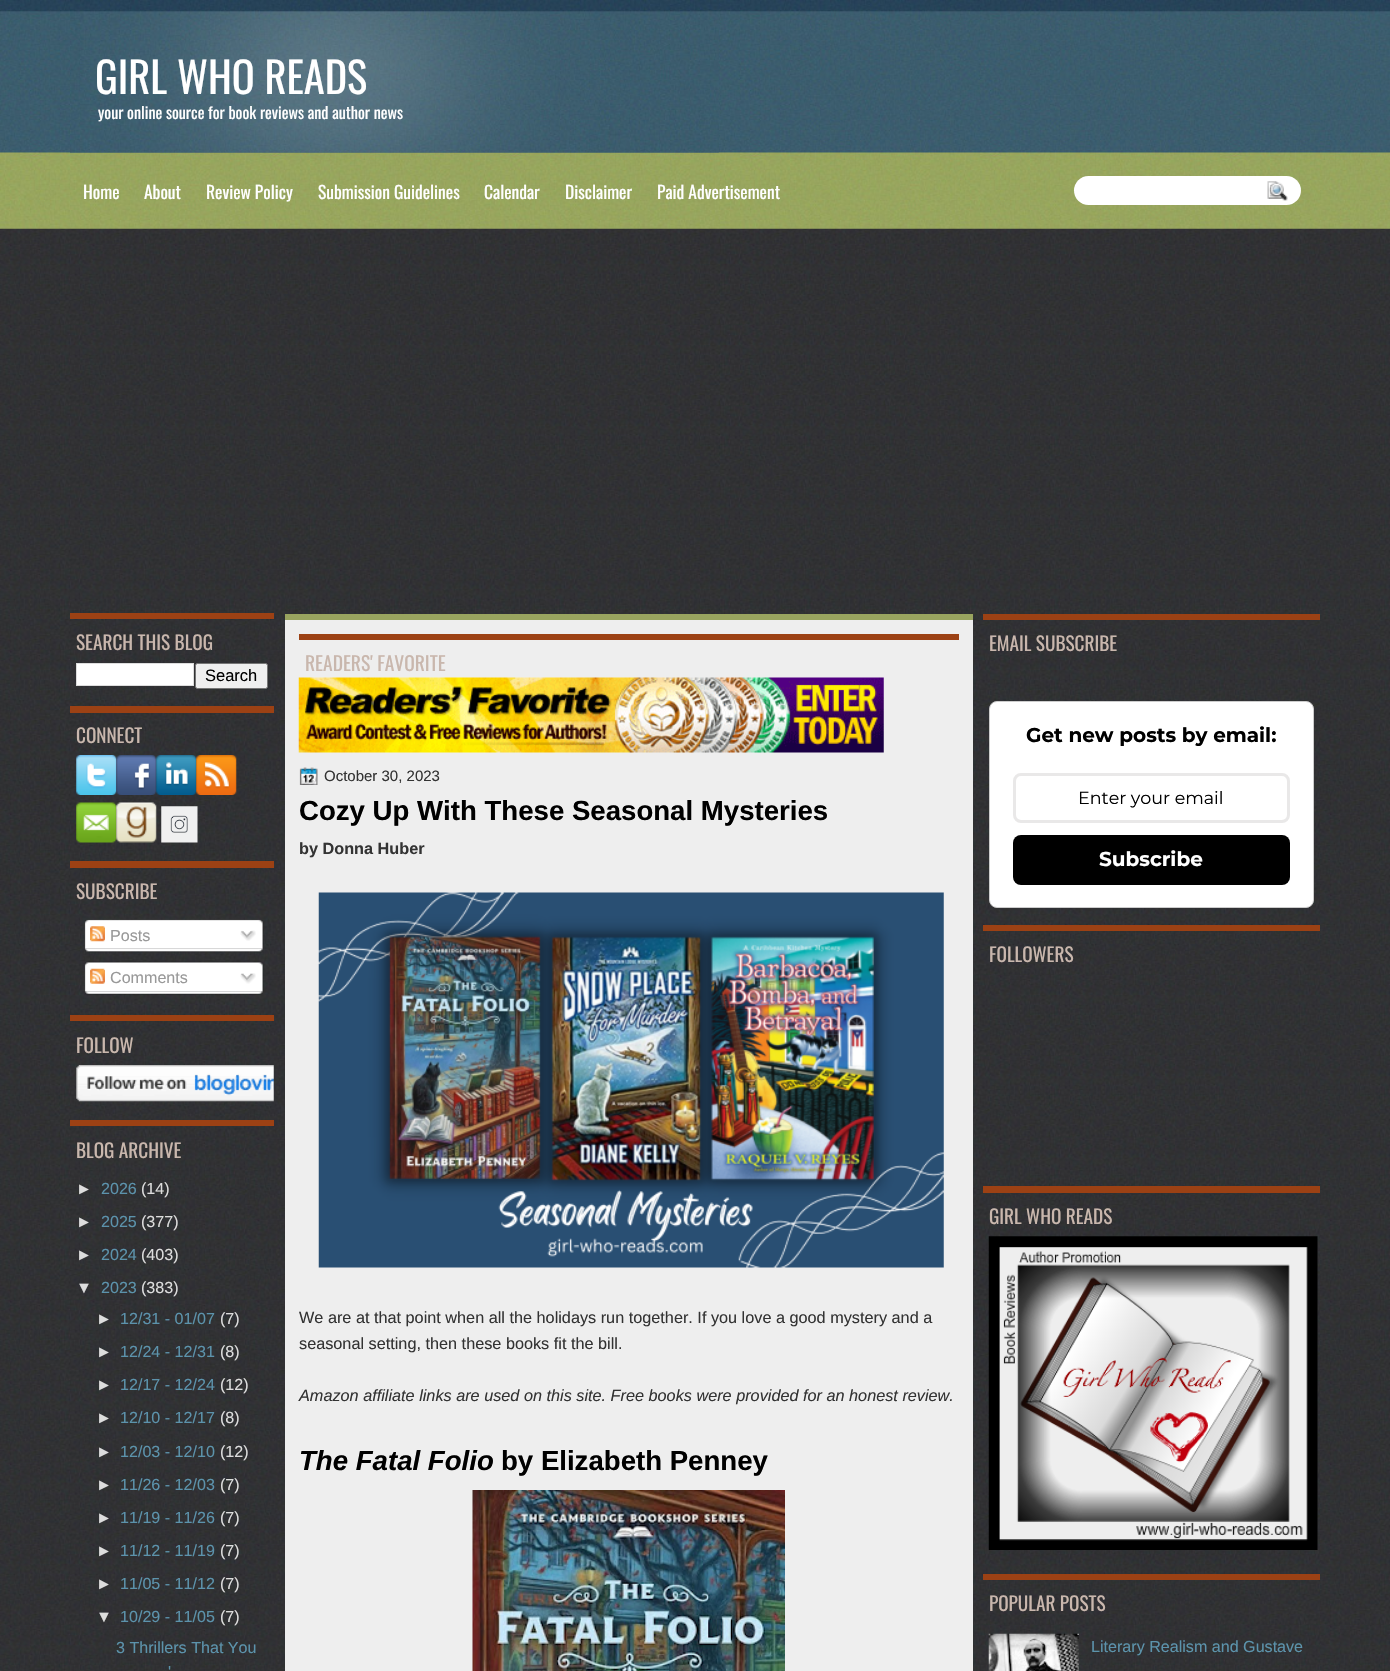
void draw(SkCanvas* c) {
SkPaint p;
p.setAntiAlias(true);
auto F=[&](const char* family, int weight, float size, bool italic = false){SkFontStyle style(weight, SkFontStyle::kNormal_Width,italic ? SkFontStyle::kItalic_Slant : SkFontStyle::kUpright_Slant);SkFont result(fontMgr->matchFamilyStyle(family, style), size);result.setSubpixel(true);return result;};
auto T=[&](const char* s, float x, float y, const SkFont& font){c->drawString(s, x, y, font, p);};
auto R=[&](float x, float y, float w, float h){c->drawRect(SkRect::MakeXYWH(x, y, w, h), p);};
auto Q=[&](float x, float y, float w, float h, float radius){c->drawRoundRect(SkRect::MakeXYWH(x, y, w, h), radius, radius, p);};
auto I=[&](const char* path, float x, float y, float w, float h){auto image = SkImages::DeferredFromEncodedData(SkData::MakeFromFileName(path));c->drawImageRect(image, SkRect::MakeXYWH(x, y, w, h), SkSamplingOptions());};
c->clear(0xffffffff);
I("1.png",0,228,1390,1443);
I("2.png",0,0,1390,229);
I("3.png",70,0,649,153);
auto f1 = F("Oswald",400,42.5);
p.setColor(0xffffffff);
T("GIRL WHO READS",95,94,f1);
auto f2 = F("Oswald",400,16.1);
T("your online source for book reviews and author news",98,119,f2);
auto f3 = F("Oswald",400,17.5);
T("Home",83,199,f3);
T("About",144,199,f3);
T("Review Policy",206,199,f3);
T("Submission Guidelines",318,199,f3);
T("Calendar",484,199,f3);
T("Disclaimer",565,199,f3);
T("Paid Advertisement",657,199,f3);
Q(1074,176,227,29,14.5);
I("4.png",1267,181,21,20);
p.setColor(0xff9c4114);
R(70,613,204,6);
auto f4 = F("Oswald",400,19.25);
p.setColor(0xffc9b7ad);
T("SEARCH THIS BLOG",76,650,f4);
p.setColor(0xffffffff);
c->drawRect(SkRect::MakeXYWH(76.5,663.5,117,22),p);
p.setStroke(true);
p.setStrokeWidth(1);
p.setColor(0xffdddddd);
c->drawRect(SkRect::MakeXYWH(76.5,663.5,117,22),p);
p.setStroke(false);
p.setColor(0xffefefef);
c->drawRoundRect(SkRect::MakeXYWH(195.5,663.5,72,25),2,2,p);
p.setStroke(true);
p.setColor(0xff767676);
c->drawRoundRect(SkRect::MakeXYWH(195.5,663.5,72,25),2,2,p);
auto f5 = F("Liberation Sans",400,16.5);
p.setStroke(false);
p.setColor(0xff000000);
T("Search",205,681,f5);
p.setColor(0xff9c4114);
R(70,706,204,7);
p.setColor(0xffc9b7ad);
T("CONNECT",76,743,f4);
I("5.png",76,755,41,40);
I("6.png",116,755,41,40);
I("7.png",156,755,41,40);
I("8.png",196,755,41,40);
I("9.png",76,802,41,41);
I("10.png",116,802,41,41);
I("11.png",161,806,37,37);
p.setColor(0xff9c4114);
R(70,861,204,7);
p.setColor(0xffc9b7ad);
T("SUBSCRIBE",76,899,f4);
I("12.png",84,919,180,30);
I("13.png",90,926,15,16);
auto f6 = F("Liberation Sans",400,16.1);
p.setColor(0xff999999);
T("Posts",110,941,f6);
I("14.png",240,930,16,11);
I("15.png",85,948,178,5);
I("16.png",84,961,180,31);
I("17.png",90,968,15,16);
T("Comments",110,983,f6);
I("18.png",240,973,16,11);
I("19.png",85,991,178,4);
p.setColor(0xff9c4114);
R(70,1015,204,6);
p.setColor(0xffc9b7ad);
T("FOLLOW",76,1053,f4);
I("20.png",76,1065,198,37);
p.setColor(0xff9c4114);
R(70,1120,204,6);
p.setColor(0xffc9b7ad);
T("BLOG ARCHIVE",76,1158,f4);
p.setColor(0xffdddddd);
T("►",76,1194,f6);
p.setColor(0xff5c93ac);
T("2026",101,1194,f6);
p.setColor(0xffdddddd);
T("(14)",141,1194,f6);
T("►",76,1227,f6);
p.setColor(0xff5c93ac);
T("2025",101,1227,f6);
p.setColor(0xffdddddd);
T("(377)",141,1227,f6);
T("►",76,1260,f6);
p.setColor(0xff5c93ac);
T("2024",101,1260,f6);
p.setColor(0xffdddddd);
T("(403)",141,1260,f6);
T("▼",76,1293,f6);
p.setColor(0xff5c93ac);
T("2023",101,1293,f6);
p.setColor(0xffdddddd);
T("(383)",141,1293,f6);
T("►",96,1324,f6);
p.setColor(0xff5c93ac);
T("12/31 - 01/07",120,1324,f6);
p.setColor(0xffdddddd);
T("(7)",220,1324,f6);
T("►",96,1357,f6);
p.setColor(0xff5c93ac);
T("12/24 - 12/31",120,1357,f6);
p.setColor(0xffdddddd);
T("(8)",220,1357,f6);
T("►",96,1390,f6);
p.setColor(0xff5c93ac);
T("12/17 - 12/24",120,1390,f6);
p.setColor(0xffdddddd);
T("(12)",220,1390,f6);
T("►",96,1423,f6);
p.setColor(0xff5c93ac);
T("12/10 - 12/17",120,1423,f6);
p.setColor(0xffdddddd);
T("(8)",220,1423,f6);
T("►",96,1457,f6);
p.setColor(0xff5c93ac);
T("12/03 - 12/10",120,1457,f6);
p.setColor(0xffdddddd);
T("(12)",220,1457,f6);
T("►",96,1490,f6);
p.setColor(0xff5c93ac);
T("11/26 - 12/03",120,1490,f6);
p.setColor(0xffdddddd);
T("(7)",220,1490,f6);
T("►",96,1523,f6);
p.setColor(0xff5c93ac);
T("11/19 - 11/26",120,1523,f6);
p.setColor(0xffdddddd);
T("(7)",220,1523,f6);
T("►",96,1556,f6);
p.setColor(0xff5c93ac);
T("11/12 - 11/19",120,1556,f6);
p.setColor(0xffdddddd);
T("(7)",220,1556,f6);
T("►",96,1589,f6);
p.setColor(0xff5c93ac);
T("11/05 - 11/12",120,1589,f6);
p.setColor(0xffdddddd);
T("(7)",220,1589,f6);
T("▼",96,1622,f6);
p.setColor(0xff5c93ac);
T("10/29 - 11/05",120,1622,f6);
p.setColor(0xffdddddd);
T("(7)",220,1622,f6);
p.setColor(0xff5c93ac);
T("3 Thrillers That You",116,1653,f6);
T("'",168,1677,f6);
p.setColor(0xffeeeeee);
R(285,620,688,1051);
p.setColor(0xff99a45f);
R(285,614,688,6);
p.setColor(0xff9c4114);
R(299,634,660,6);
auto f7 = F("Oswald",400,19.5);
p.setColor(0xffc9b7ad);
T("READERS' FAVORITE",305,671,f7);
I("21.png",298,677,586,76);
I("22.png",299,767,19,18);
auto f8 = F("Liberation Sans",400,15);
p.setColor(0xff333333);
T("October 30, 2023",324,781,f8);
auto f9 = F("Liberation Sans",700,27.6);
p.setColor(0xff000000);
T("Cozy Up With These Seasonal Mysteries",299,820,f9);
auto f10 = F("Liberation Sans",700,16.25);
p.setColor(0xff333333);
T("by Donna Huber",299,854,f10);
I("23.png",318,892,626,376);
auto f11 = F("Liberation Sans",400,16.25);
T("We are at that point when all the holidays run together. If you love a good mystery and a",299,1323,f11);
T("seasonal setting, then these books fit the bill.",299,1349,f11);
auto f12 = F("Liberation Sans",400,16.25,true);
T("Amazon affiliate links are used on this site. Free books were provided for an honest review.",299,1401,f12);
auto f13 = F("Liberation Sans",700,27.6,true);
p.setColor(0xff000000);
T("The Fatal Folio",299,1470,f13);
T("by Elizabeth Penney",501,1470,f9);
I("24.png",472,1490,313,181);
p.setColor(0xff9c4114);
R(983,614,337,6);
p.setColor(0xffc9b7ad);
T("EMAIL SUBSCRIBE",989,651,f4);
p.setColor(0xffffffff);
c->drawRoundRect(SkRect::MakeXYWH(989.5,701.5,324,206),7.5,7.5,p);
p.setStroke(true);
p.setColor(0xffcccccc);
c->drawRoundRect(SkRect::MakeXYWH(989.5,701.5,324,206),7.5,7.5,p);
auto f14 = F("Montserrat",100,20);
p.setStroke(false);
p.setColor(0xff000000);
T("Get new posts by email:",1026,742,f14);
p.setStroke(true);
p.setStrokeWidth(3);
p.setColor(0xffe9e8e8);
c->drawRoundRect(SkRect::MakeXYWH(1014.5,774.5,274,47),6.5,6.5,p);
auto f15 = F("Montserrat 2",100,17.5);
p.setStroke(false);
p.setColor(0xff000000);
T("Enter your email",1078,804,f15);
Q(1013,835,277,50,8);
p.setColor(0xffffffff);
T("Subscribe",1099,866,f14);
p.setColor(0xff9c4114);
R(983,925,337,6);
p.setColor(0xffc9b7ad);
T("FOLLOWERS",989,962,f4);
p.setColor(0xff9c4114);
R(983,1186,337,7);
p.setColor(0xffc9b7ad);
T("GIRL WHO READS",989,1224,f4);
I("25.png",988,1236,330,314);
p.setColor(0xff9c4114);
R(983,1574,337,6);
p.setColor(0xffc9b7ad);
T("POPULAR POSTS",989,1611,f4);
I("26.png",988,1633,91,38);
p.setColor(0xff5c93ac);
T("Literary Realism and Gustave",1091,1652,f6);
}
